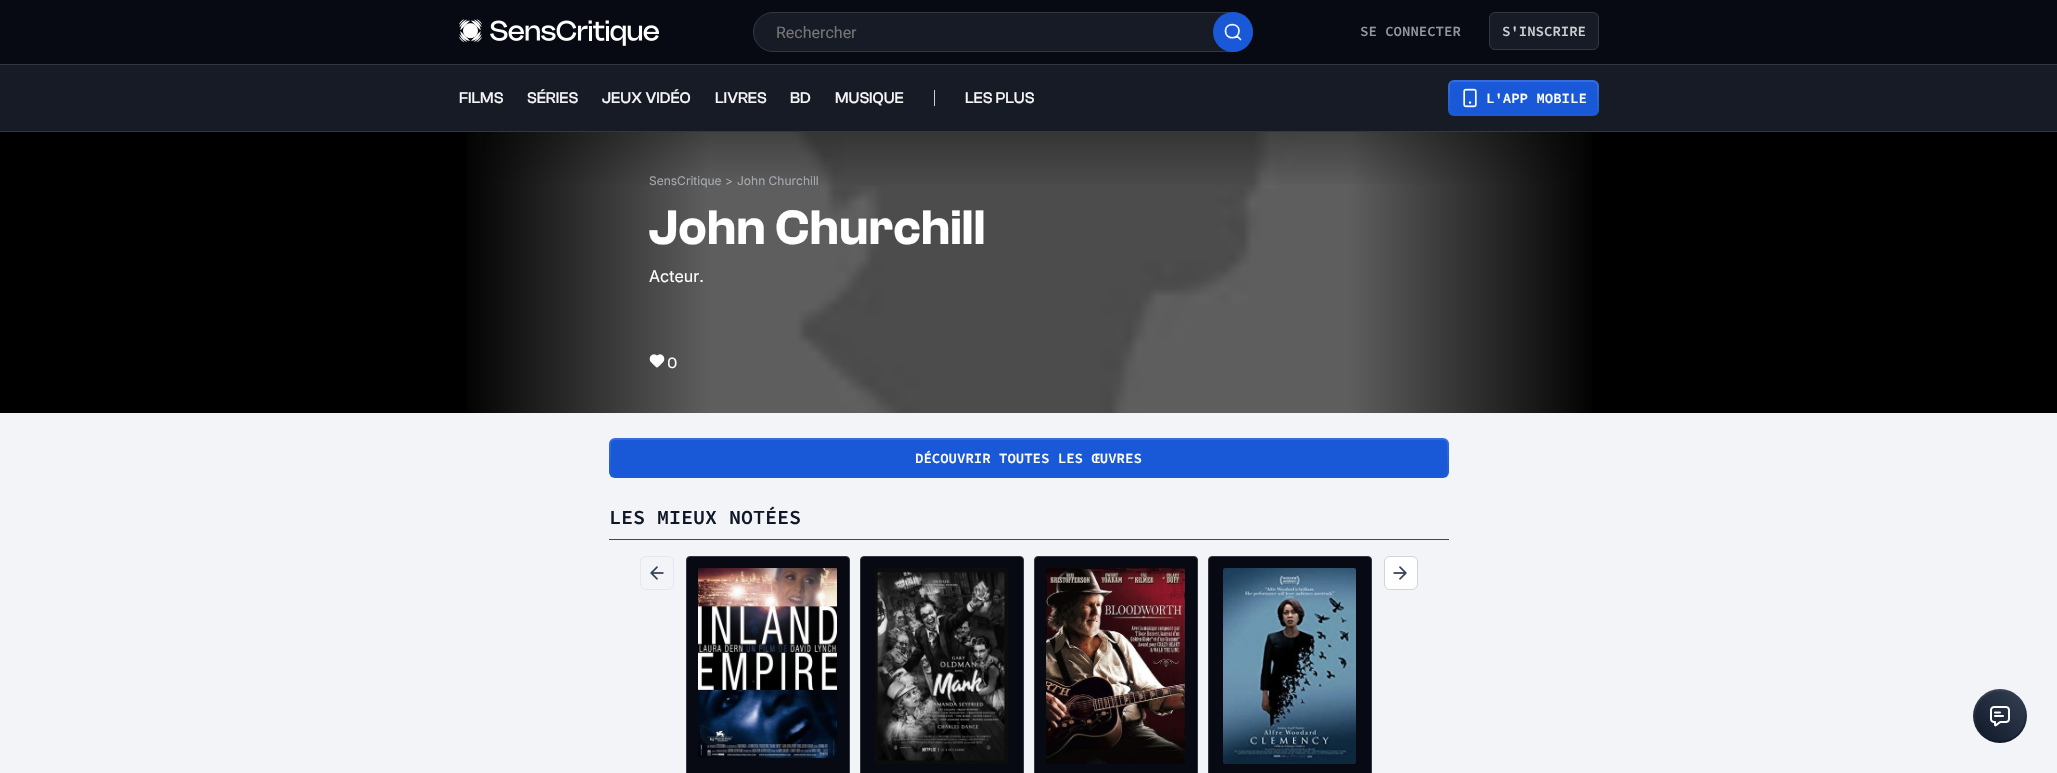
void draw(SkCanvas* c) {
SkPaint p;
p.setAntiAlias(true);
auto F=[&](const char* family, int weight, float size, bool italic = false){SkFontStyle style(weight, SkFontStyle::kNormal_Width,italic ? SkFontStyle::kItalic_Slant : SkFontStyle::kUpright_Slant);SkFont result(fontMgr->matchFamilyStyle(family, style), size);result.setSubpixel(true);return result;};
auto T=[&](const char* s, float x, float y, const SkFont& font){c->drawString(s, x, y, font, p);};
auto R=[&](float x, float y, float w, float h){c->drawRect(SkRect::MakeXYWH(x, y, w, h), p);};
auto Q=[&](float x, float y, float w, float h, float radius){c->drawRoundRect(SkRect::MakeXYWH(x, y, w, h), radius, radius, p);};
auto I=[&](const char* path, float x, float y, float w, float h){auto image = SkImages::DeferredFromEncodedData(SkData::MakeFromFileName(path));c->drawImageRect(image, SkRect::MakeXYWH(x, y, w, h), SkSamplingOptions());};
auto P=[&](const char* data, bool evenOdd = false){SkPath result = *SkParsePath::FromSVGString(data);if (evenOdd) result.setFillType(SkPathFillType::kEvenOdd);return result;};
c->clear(0xfff2f4f7);
p.setColor(0xff000000);
R(0,132,2057,281);
p.setColor(0xff070a12);
R(0,0,2057,64);
p.setColor(0xff333741);
R(0,64,2057,1);
I("1.png",459,19,200,27);
p.setColor(0xff161b26);
c->drawRoundRect(SkRect::MakeXYWH(753.5,12.5,499,39),19.5,19.5,p);
p.setStroke(true);
p.setStrokeWidth(1);
p.setColor(0xff333741);
c->drawRoundRect(SkRect::MakeXYWH(753.5,12.5,499,39),19.5,19.5,p);
auto f1 = F("Roboto",400,16);
p.setStroke(false);
p.setColor(0xff757575);
T("Rechercher",776,38,f1);
p.setColor(0xff1959d7);
c->drawCircle(1233,32,20,p);
p.setStroke(true);
p.setStrokeWidth(1.7);
p.setStrokeCap(SkPaint::kRound_Cap);
p.setStrokeJoin(SkPaint::kRound_Join);
p.setColor(0xfff5f5f5);
c->drawPath(P("M1240.5 39.5l-3.5-3.5m2-5c0 9-13.5 9-13.5 0c0-8.5 13.5-8.5 13.5 0z"),p);
auto f2 = F("Source Code Pro",600,14);
p.setStroke(false);
p.setColor(0xff94969c);
T("SE CONNECTER",1360,36,f2);
p.setColor(0xff161b26);
c->drawRoundRect(SkRect::MakeXYWH(1489.5,12.5,109,37),5.5,5.5,p);
p.setStroke(true);
p.setStrokeWidth(1);
p.setStrokeCap(SkPaint::kButt_Cap);
p.setStrokeJoin(SkPaint::kMiter_Join);
p.setColor(0xff333741);
c->drawRoundRect(SkRect::MakeXYWH(1489.5,12.5,109,37),5.5,5.5,p);
p.setStroke(false);
p.setColor(0xffcecfd2);
T("S'INSCRIRE",1502,36,f2);
p.setColor(0xff161b26);
R(0,65,2057,66);
p.setColor(0xff333741);
R(0,131,2057,1);
auto f3 = F("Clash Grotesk",500,16);
p.setColor(0xfff5f5f6);
T("FILMS",459,103,f3);
T("SÉRIES",527,103,f3);
T("JEUX VIDÉO",602,103,f3);
T("LIVRES",715,103,f3);
T("BD",790,103,f3);
T("MUSIQUE",835,103,f3);
p.setColor(0xffcecfd2);
R(934,90,1,16);
p.setColor(0xfff5f5f6);
T("LES PLUS",965,103,f3);
{
const SkColor colors[] = {0xff356ddc,0xff1a5ad7};
const float stops[] = {0,1};
const SkPoint ends[] = {{1524,80}, {1524,116}};
p.setShader(SkGradientShader::MakeLinear(ends, colors, stops, 2, SkTileMode::kClamp));
p.setAlpha(255);
}
Q(1448,80,151,36,6);
p.setShader(nullptr);
p.setColor(0xff1959d7);
Q(1450,82,147,32,4);
I("2.png",1463,88,14,20);
p.setColor(0xffffffff);
T("L'APP MOBILE",1486,103,f2);
{
const SkColor colors[] = {0xff000000,0xff5e5e5e};
const float stops[] = {0,1};
const SkPoint ends[] = {{459,207}, {709,207}};
p.setShader(SkGradientShader::MakeLinear(ends, colors, stops, 2, SkTileMode::kClamp));
p.setAlpha(255);
}
R(466,132,243,281);
{
const SkColor colors[] = {0xff000000,0xff5e5e5e};
const float stops[] = {0,1};
const SkPoint ends[] = {{1599,207}, {1349,207}};
p.setShader(SkGradientShader::MakeLinear(ends, colors, stops, 2, SkTileMode::kClamp));
p.setAlpha(255);
}
R(1349,132,243,281);
I("4.png",709,132,640,281);
{
const SkColor colors[] = {0xff000000,0x00000000};
const float stops[] = {0,1};
const SkPoint ends[] = {{1029,0}, {1029,190}};
p.setShader(SkGradientShader::MakeLinear(ends, colors, stops, 2, SkTileMode::kClamp));
p.setAlpha(255);
}
R(482,132,1094,53);
auto f4 = F("Inter",400,12);
p.setShader(nullptr);
p.setColor(0xffa6aaaf);
T("SensCritique",649,185,f4);
T(">",725,185,f4);
T("John Churchill",737,185,f4);
auto f5 = F("Clash Grotesk",600,50);
p.setColor(0xffffffff);
T("John Churchill",649,244,f5);
auto f6 = F("Inter",400,16);
T("Acteur.",649,282,f6);
I("3.png",649,354,16,14);
auto f7 = F("Sora",400,14);
T("0",667,368,f7);
{
const SkColor colors[] = {0xff356ddc,0xff1a5ad7};
const float stops[] = {0,1};
const SkPoint ends[] = {{1029,438}, {1029,478}};
p.setShader(SkGradientShader::MakeLinear(ends, colors, stops, 2, SkTileMode::kClamp));
p.setAlpha(255);
}
Q(609,438,840,40,6);
p.setShader(nullptr);
p.setColor(0xff1959d7);
Q(611,440,836,36,4);
p.setColor(0xffffffff);
T("DÉCOUVRIR TOUTES LES ŒUVRES",915,463,f2);
p.setColor(0xff434850);
R(609,539,840,1);
auto f8 = F("Source Code Pro",600,20);
p.setColor(0xff101828);
T("LES MIEUX NOTÉES",609,524,f8);
p.setStroke(true);
p.setColor(0xffe4e7ec);
c->drawRoundRect(SkRect::MakeXYWH(640.5,556.5,33,33),5.5,5.5,p);
I("5.png",650,566,14,14);
p.setStroke(false);
p.setColor(0xff070a12);
c->drawRoundRect(SkRect::MakeXYWH(686.5,556.5,163,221),3.5,3.5,p);
p.setStroke(true);
p.setColor(0xff333741);
c->drawRoundRect(SkRect::MakeXYWH(686.5,556.5,163,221),3.5,3.5,p);
I("6.png",698,568,139,190);
p.setStroke(false);
p.setColor(0xff070a12);
c->drawRoundRect(SkRect::MakeXYWH(860.5,556.5,163,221),3.5,3.5,p);
p.setStroke(true);
p.setColor(0xff333741);
c->drawRoundRect(SkRect::MakeXYWH(860.5,556.5,163,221),3.5,3.5,p);
I("7.png",875,568,133,196);
p.setStroke(false);
p.setColor(0xff070a12);
c->drawRoundRect(SkRect::MakeXYWH(1034.5,556.5,163,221),3.5,3.5,p);
p.setStroke(true);
p.setColor(0xff333741);
c->drawRoundRect(SkRect::MakeXYWH(1034.5,556.5,163,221),3.5,3.5,p);
I("8.png",1046,568,139,196);
p.setStroke(false);
p.setColor(0xff070a12);
c->drawRoundRect(SkRect::MakeXYWH(1208.5,556.5,163,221),3.5,3.5,p);
p.setStroke(true);
p.setColor(0xff333741);
c->drawRoundRect(SkRect::MakeXYWH(1208.5,556.5,163,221),3.5,3.5,p);
I("9.png",1223,568,133,196);
p.setStroke(false);
p.setColor(0xffffffff);
c->drawRoundRect(SkRect::MakeXYWH(1384.5,556.5,33,33),5.5,5.5,p);
p.setStroke(true);
p.setColor(0xffd0d5dd);
c->drawRoundRect(SkRect::MakeXYWH(1384.5,556.5,33,33),5.5,5.5,p);
I("10.png",1393,566,14,14);
p.setStroke(false);
{
const SkColor colors[] = {0xff3a4353,0xff101828};
const float stops[] = {0,1};
const SkPoint ends[] = {{2000,689}, {2000,743}};
p.setShader(SkGradientShader::MakeLinear(ends, colors, stops, 2, SkTileMode::kClamp));
p.setAlpha(255);
}
c->drawCircle(2000,716,27,p);
{
const SkColor colors[] = {0xff101828,0xff344054};
const float stops[] = {0,1};
const SkPoint ends[] = {{1975,741}, {2025,691}};
p.setShader(SkGradientShader::MakeLinear(ends, colors, stops, 2, SkTileMode::kClamp));
p.setAlpha(255);
}
c->drawCircle(2000,716,25,p);
I("11.png",1990,706,20,21);
}
